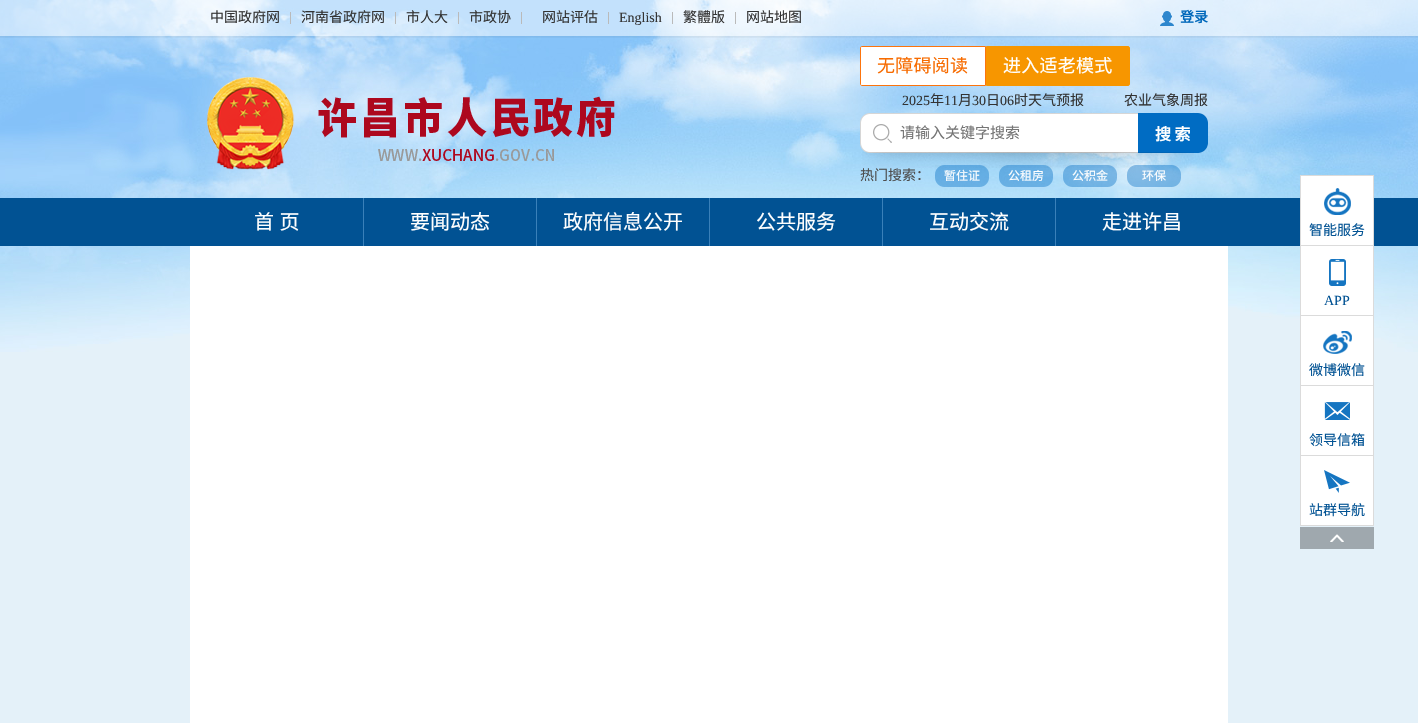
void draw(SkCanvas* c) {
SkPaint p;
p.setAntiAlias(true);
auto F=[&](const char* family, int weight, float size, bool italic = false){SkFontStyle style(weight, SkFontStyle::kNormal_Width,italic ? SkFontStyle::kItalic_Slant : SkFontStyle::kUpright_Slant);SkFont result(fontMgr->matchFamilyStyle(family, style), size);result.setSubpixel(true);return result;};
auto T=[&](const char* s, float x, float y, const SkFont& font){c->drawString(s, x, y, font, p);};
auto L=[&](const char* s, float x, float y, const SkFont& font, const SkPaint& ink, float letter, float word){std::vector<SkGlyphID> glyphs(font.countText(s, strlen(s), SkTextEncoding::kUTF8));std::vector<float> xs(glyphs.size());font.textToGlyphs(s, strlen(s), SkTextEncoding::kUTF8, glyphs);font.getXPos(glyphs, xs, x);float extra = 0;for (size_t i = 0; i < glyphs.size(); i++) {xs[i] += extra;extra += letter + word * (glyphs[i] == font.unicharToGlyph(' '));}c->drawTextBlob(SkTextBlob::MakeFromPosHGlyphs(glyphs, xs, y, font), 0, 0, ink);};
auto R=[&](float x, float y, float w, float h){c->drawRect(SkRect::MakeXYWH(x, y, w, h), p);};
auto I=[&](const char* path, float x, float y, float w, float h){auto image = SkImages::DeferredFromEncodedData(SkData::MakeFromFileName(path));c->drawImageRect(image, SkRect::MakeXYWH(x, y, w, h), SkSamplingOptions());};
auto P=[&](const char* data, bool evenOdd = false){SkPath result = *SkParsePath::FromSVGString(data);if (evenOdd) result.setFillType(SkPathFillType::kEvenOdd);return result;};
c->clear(0xffe4f1f9);
I("1.png",0,0,1418,352);
I("2.png",0,0,1418,38);
auto f1 = F("Noto Sans CJK SC",400,14);
p.setColor(0xff333333);
T("中国政府网",210,22,f1);
p.setColor(0xffbababa);
R(290,12,1,12);
p.setColor(0xff333333);
T("河南省政府网",301,22,f1);
p.setColor(0xffbababa);
R(395,12,1,12);
p.setColor(0xff333333);
T("市人大",406,22,f1);
p.setColor(0xffbababa);
R(458,12,1,12);
p.setColor(0xff333333);
T("市政协",469,22,f1);
p.setColor(0xffbababa);
R(521,12,1,12);
p.setColor(0xff333333);
T("网站评估",542,22,f1);
p.setColor(0xffbababa);
R(608,12,1,12);
auto f2 = F("Liberation Serif",400,14);
p.setColor(0xff333333);
T("English",619,22,f2);
p.setColor(0xffbababa);
R(672,12,1,12);
p.setColor(0xff333333);
T("繁體版",683,22,f1);
p.setColor(0xffbababa);
R(735,12,1,12);
p.setColor(0xff333333);
T("网站地图",746,22,f1);
I("3.png",1160,11,14,15);
auto f3 = F("Noto Sans CJK SC",700,14);
p.setColor(0xff0068bb);
T("登录",1180,22,f3);
I("4.png",207,77,408,93);
p.setColor(0xffffffff);
c->drawPath(P("M862 46.5h123.5v39h-123.5c-1 0-1.5-.5-1.5-1.5v-36c0-1 .5-1.5 1.5-1.5z"),p);
p.setStroke(true);
p.setStrokeWidth(1);
p.setColor(0xfffc740d);
c->drawPath(P("M862 46.5h123.5v39h-123.5c-1 0-1.5-.5-1.5-1.5v-36c0-1 .5-1.5 1.5-1.5z"),p);
auto f4 = F("Noto Sans CJK SC",400,18);
p.setStroke(false);
p.setColor(0xfff76b00);
L("无障碍阅读",877,72,f4,p,.25,0);
p.setColor(0xfff79600);
c->drawPath(P("M986.5 46.5h141.5c1 0 1.5 .5 1.5 1.5v36c0 1-.5 1.5-1.5 1.5h-141.5z"),p);
p.setStroke(true);
c->drawPath(P("M986.5 46.5h141.5c1 0 1.5 .5 1.5 1.5v36c0 1-.5 1.5-1.5 1.5h-141.5z"),p);
p.setStroke(false);
p.setColor(0xffffffff);
L("进入适老模式",1003,72,f4,p,.25,0);
p.setColor(0xff333333);
T("2025",902,105,f2);
T("年",930,105,f1);
T("11",944,105,f2);
T("月",958,105,f1);
T("30",972,105,f2);
T("日",986,105,f1);
T("06",1000,105,f2);
T("时天气预报",1014,105,f1);
T("农业气象周报",1124,105,f1);
I("5.png",860,113,278,40);
auto f5 = F("Noto Sans CJK SC",400,15);
p.setColor(0xff757575);
T("请输入关键字搜索",900,138,f5);
I("6.png",1138,113,70,40);
auto f6 = F("Noto Sans CJK SC",700,16);
p.setColor(0xffffffff);
T("搜 索",1155,140,f6);
I("7.png",862,152,332,16);
p.setColor(0xff4e4e4e);
T("热门搜索：",860,180,f1);
p.setColor(0x66006bc3);
R(944,165,36,22);
I("8.png",935,165,9,22);
auto f7 = F("Noto Sans CJK SC",400,12);
p.setColor(0xffffffff);
T("暂住证",944,180,f7);
I("9.png",980,165,9,22);
p.setColor(0x66006bc3);
R(1008,165,36,22);
I("10.png",999,165,9,22);
p.setColor(0xffffffff);
T("公租房",1008,180,f7);
I("11.png",1044,165,9,22);
p.setColor(0x66006bc3);
R(1072,165,36,22);
I("12.png",1063,165,9,22);
p.setColor(0xffffffff);
T("公积金",1072,180,f7);
I("13.png",1108,165,9,22);
p.setColor(0x66006bc3);
R(1136,165,36,22);
I("14.png",1127,165,9,22);
p.setColor(0xffffffff);
T("环保",1142,180,f7);
I("15.png",1172,165,9,22);
p.setColor(0xff015293);
R(0,198,1418,48);
auto f8 = F("Noto Sans CJK SC",400,20);
p.setColor(0xffffffff);
L("首 页",254,229,f8,p,0,1);
p.setColor(0xff3a80b9);
R(363,198,1,48);
p.setColor(0xffffffff);
T("要闻动态",410,229,f8);
p.setColor(0xff3a80b9);
R(536,198,1,48);
p.setColor(0xffffffff);
T("政府信息公开",563,229,f8);
p.setColor(0xff3a80b9);
R(709,198,1,48);
p.setColor(0xffffffff);
T("公共服务",756,229,f8);
p.setColor(0xff3a80b9);
R(882,198,1,48);
p.setColor(0xffffffff);
T("互动交流",929,229,f8);
p.setColor(0xff3a80b9);
R(1055,198,1,48);
p.setColor(0xffffffff);
T("走进许昌",1102,229,f8);
c->drawRect(SkRect::MakeXYWH(1300.5,175.5,73,70),p);
p.setStroke(true);
p.setColor(0xffdbdbdb);
c->drawRect(SkRect::MakeXYWH(1300.5,175.5,73,70),p);
I("16.png",1324,188,27,27);
p.setStroke(false);
p.setColor(0xff015293);
T("智能服务",1309,235,f1);
p.setColor(0xffffffff);
c->drawRect(SkRect::MakeXYWH(1300.5,245.5,73,70),p);
p.setStroke(true);
p.setColor(0xffdbdbdb);
c->drawRect(SkRect::MakeXYWH(1300.5,245.5,73,70),p);
I("17.png",1329,259,17,27);
p.setStroke(false);
p.setColor(0xff015293);
T("APP",1324,305,f2);
p.setColor(0xffffffff);
c->drawRect(SkRect::MakeXYWH(1300.5,315.5,73,70),p);
p.setStroke(true);
p.setColor(0xffdbdbdb);
c->drawRect(SkRect::MakeXYWH(1300.5,315.5,73,70),p);
I("18.png",1323,331,29,23);
p.setStroke(false);
p.setColor(0xff015293);
T("微博微信",1309,375,f1);
p.setColor(0xffffffff);
c->drawRect(SkRect::MakeXYWH(1300.5,385.5,73,70),p);
p.setStroke(true);
p.setColor(0xffdbdbdb);
c->drawRect(SkRect::MakeXYWH(1300.5,385.5,73,70),p);
I("19.png",1324,402,26,18);
p.setStroke(false);
p.setColor(0xff015293);
T("领导信箱",1309,445,f1);
p.setColor(0xffffffff);
c->drawRect(SkRect::MakeXYWH(1300.5,455.5,73,70),p);
p.setStroke(true);
p.setColor(0xffdbdbdb);
c->drawRect(SkRect::MakeXYWH(1300.5,455.5,73,70),p);
I("20.png",1324,470,26,23);
p.setStroke(false);
p.setColor(0xff015293);
T("站群导航",1309,515,f1);
I("21.png",1300,527,74,22);
p.setColor(0xffffffff);
R(190,246,1038,477);
}
